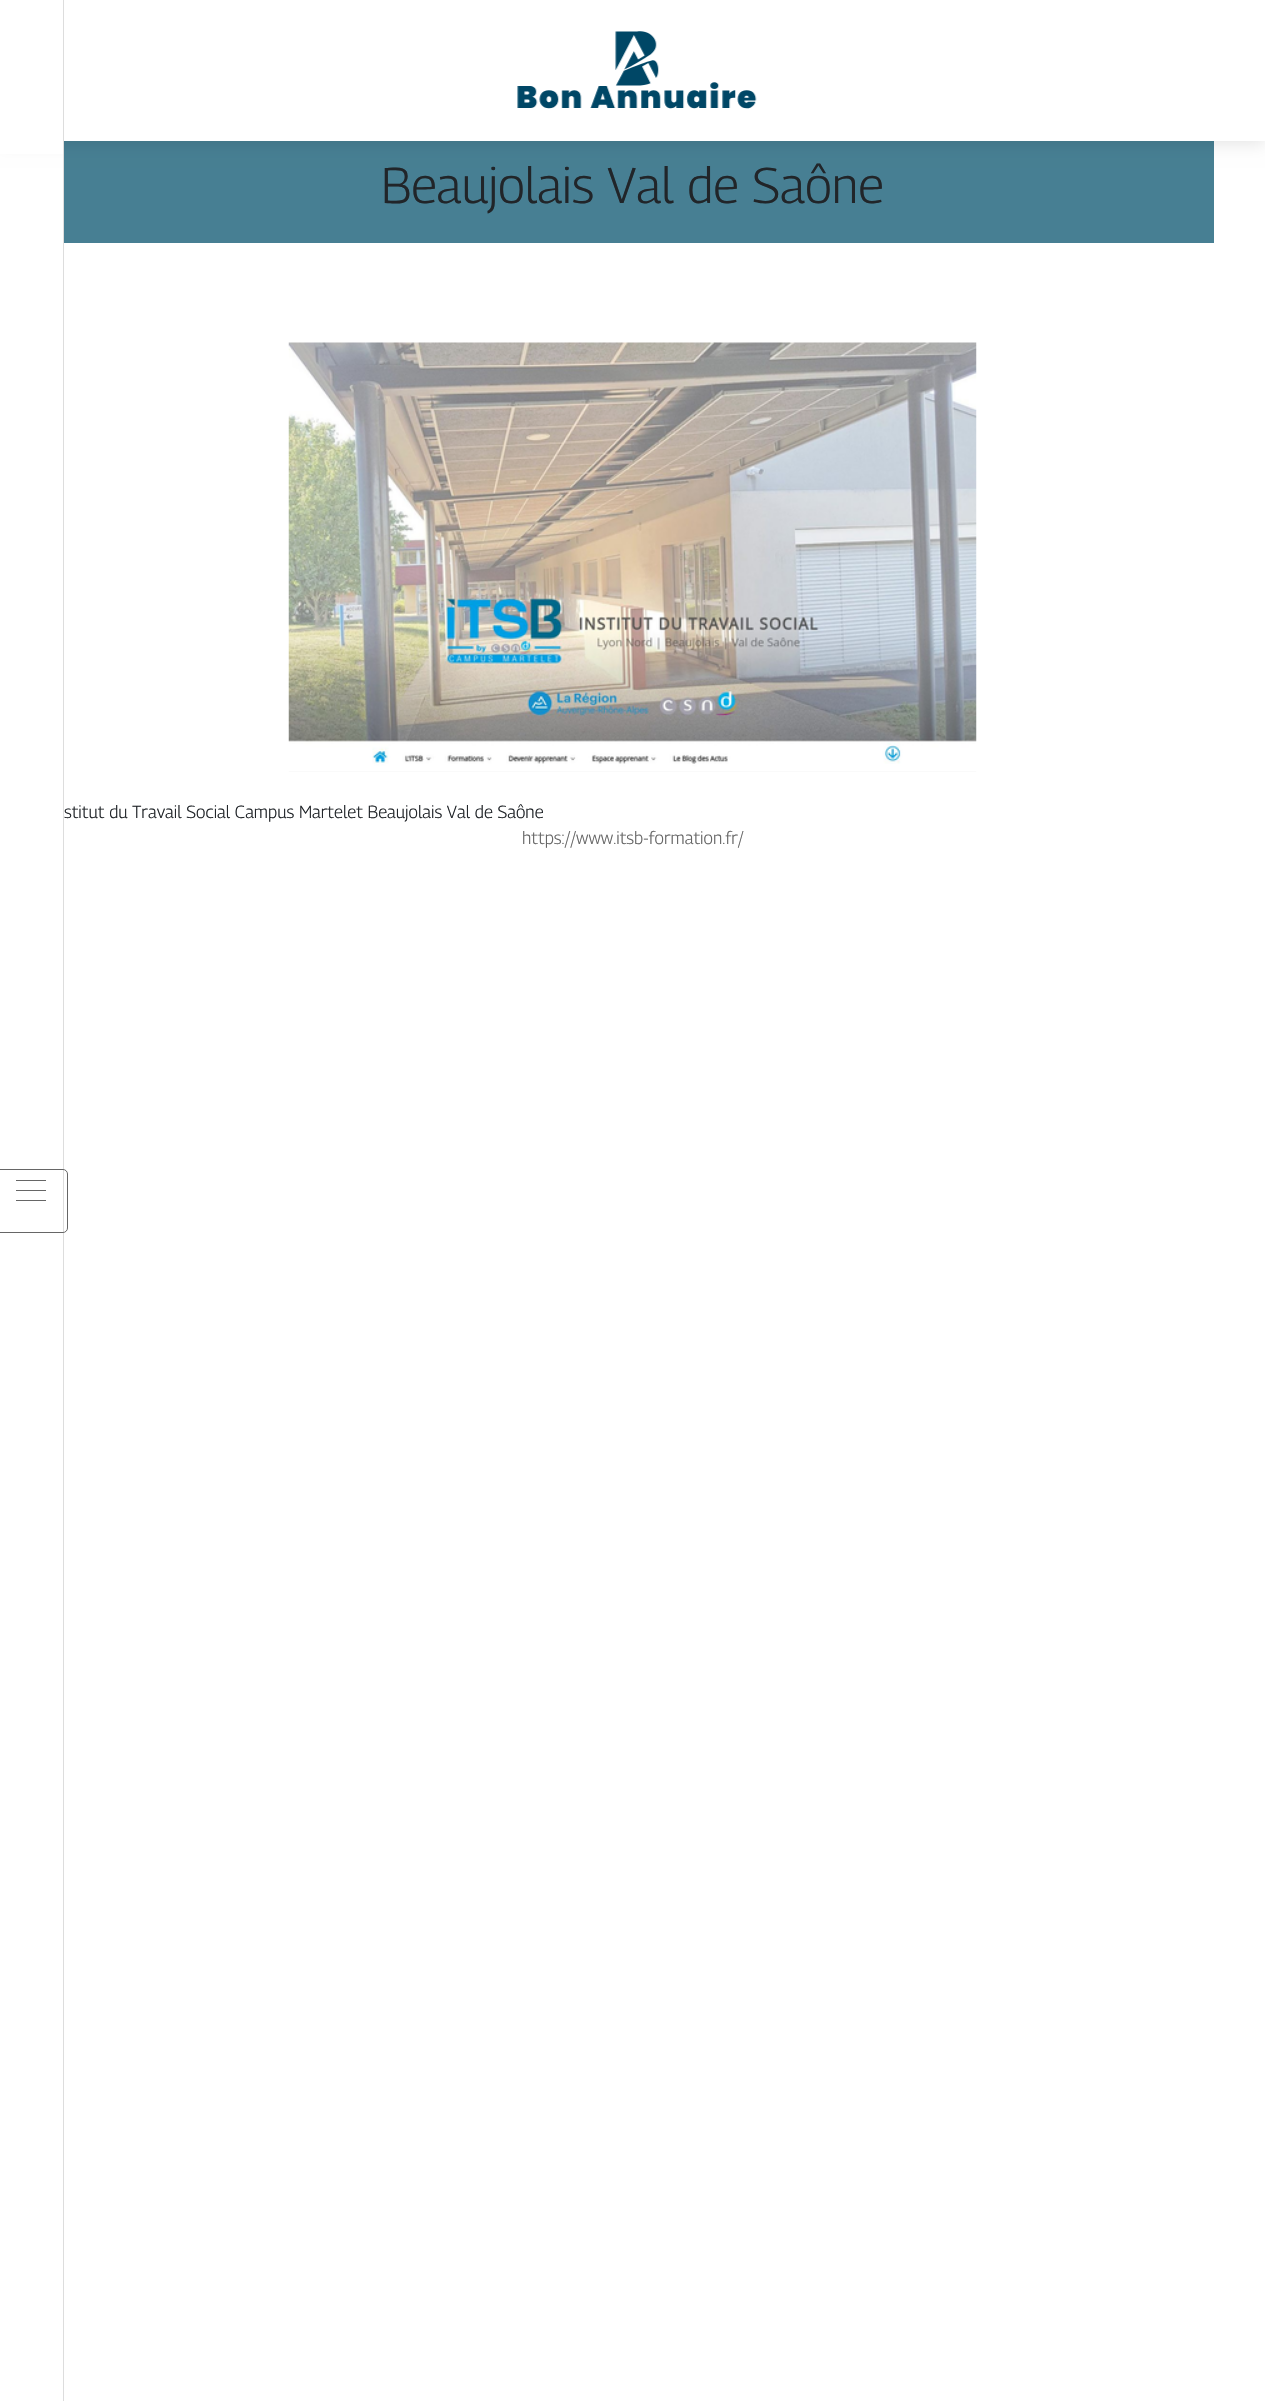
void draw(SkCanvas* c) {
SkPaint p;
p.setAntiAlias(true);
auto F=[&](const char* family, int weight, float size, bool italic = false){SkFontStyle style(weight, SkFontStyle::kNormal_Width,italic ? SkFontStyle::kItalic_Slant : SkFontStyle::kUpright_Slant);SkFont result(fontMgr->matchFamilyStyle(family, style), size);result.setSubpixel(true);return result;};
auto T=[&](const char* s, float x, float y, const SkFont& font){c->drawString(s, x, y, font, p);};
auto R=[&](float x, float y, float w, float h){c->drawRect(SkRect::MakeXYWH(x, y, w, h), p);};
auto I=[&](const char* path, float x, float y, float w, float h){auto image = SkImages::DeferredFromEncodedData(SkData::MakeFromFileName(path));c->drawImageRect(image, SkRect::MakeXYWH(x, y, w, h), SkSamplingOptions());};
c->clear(0xffffffff);
p.setColor(0xff477f93);
R(64,141,1150,102);
p.setColor(0x1a000000);
p.setMaskFilter(SkMaskFilter::MakeBlur(kNormal_SkBlurStyle, 8));
c->drawRect(SkRect::MakeXYWH(0,3,1265,141),p);
p.setMaskFilter(nullptr);
p.setColor(0xffffffff);
R(64,0,1201,141);
R(0,0,63,154);
p.setColor(0xffdddddd);
R(63,0,1,2401);
p.setStroke(true);
p.setStrokeWidth(1);
p.setColor(0xff666666);
c->drawRoundRect(SkRect::MakeXYWH(-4.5,1169.5,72,63),4.5,4.5,p);
p.setStroke(false);
R(16,1180,30,1);
R(16,1190,30,1);
R(16,1200,30,1);
I("1.png",517,31,240,78);
auto f1 = F("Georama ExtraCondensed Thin",100,50);
p.setColor(0xff212529);
T("Beaujolais Val de Saône",381,203,f1);
I("2.png",288,342,689,430);
auto f2 = F("Georama ExtraCondensed Thin",100,17.5);
T("stitut du Travail Social Campus Martelet Beaujolais Val de Saône",64,818,f2);
p.setColor(0xff666666);
T("https://www.itsb-formation.fr/",522,844,f2);
}
